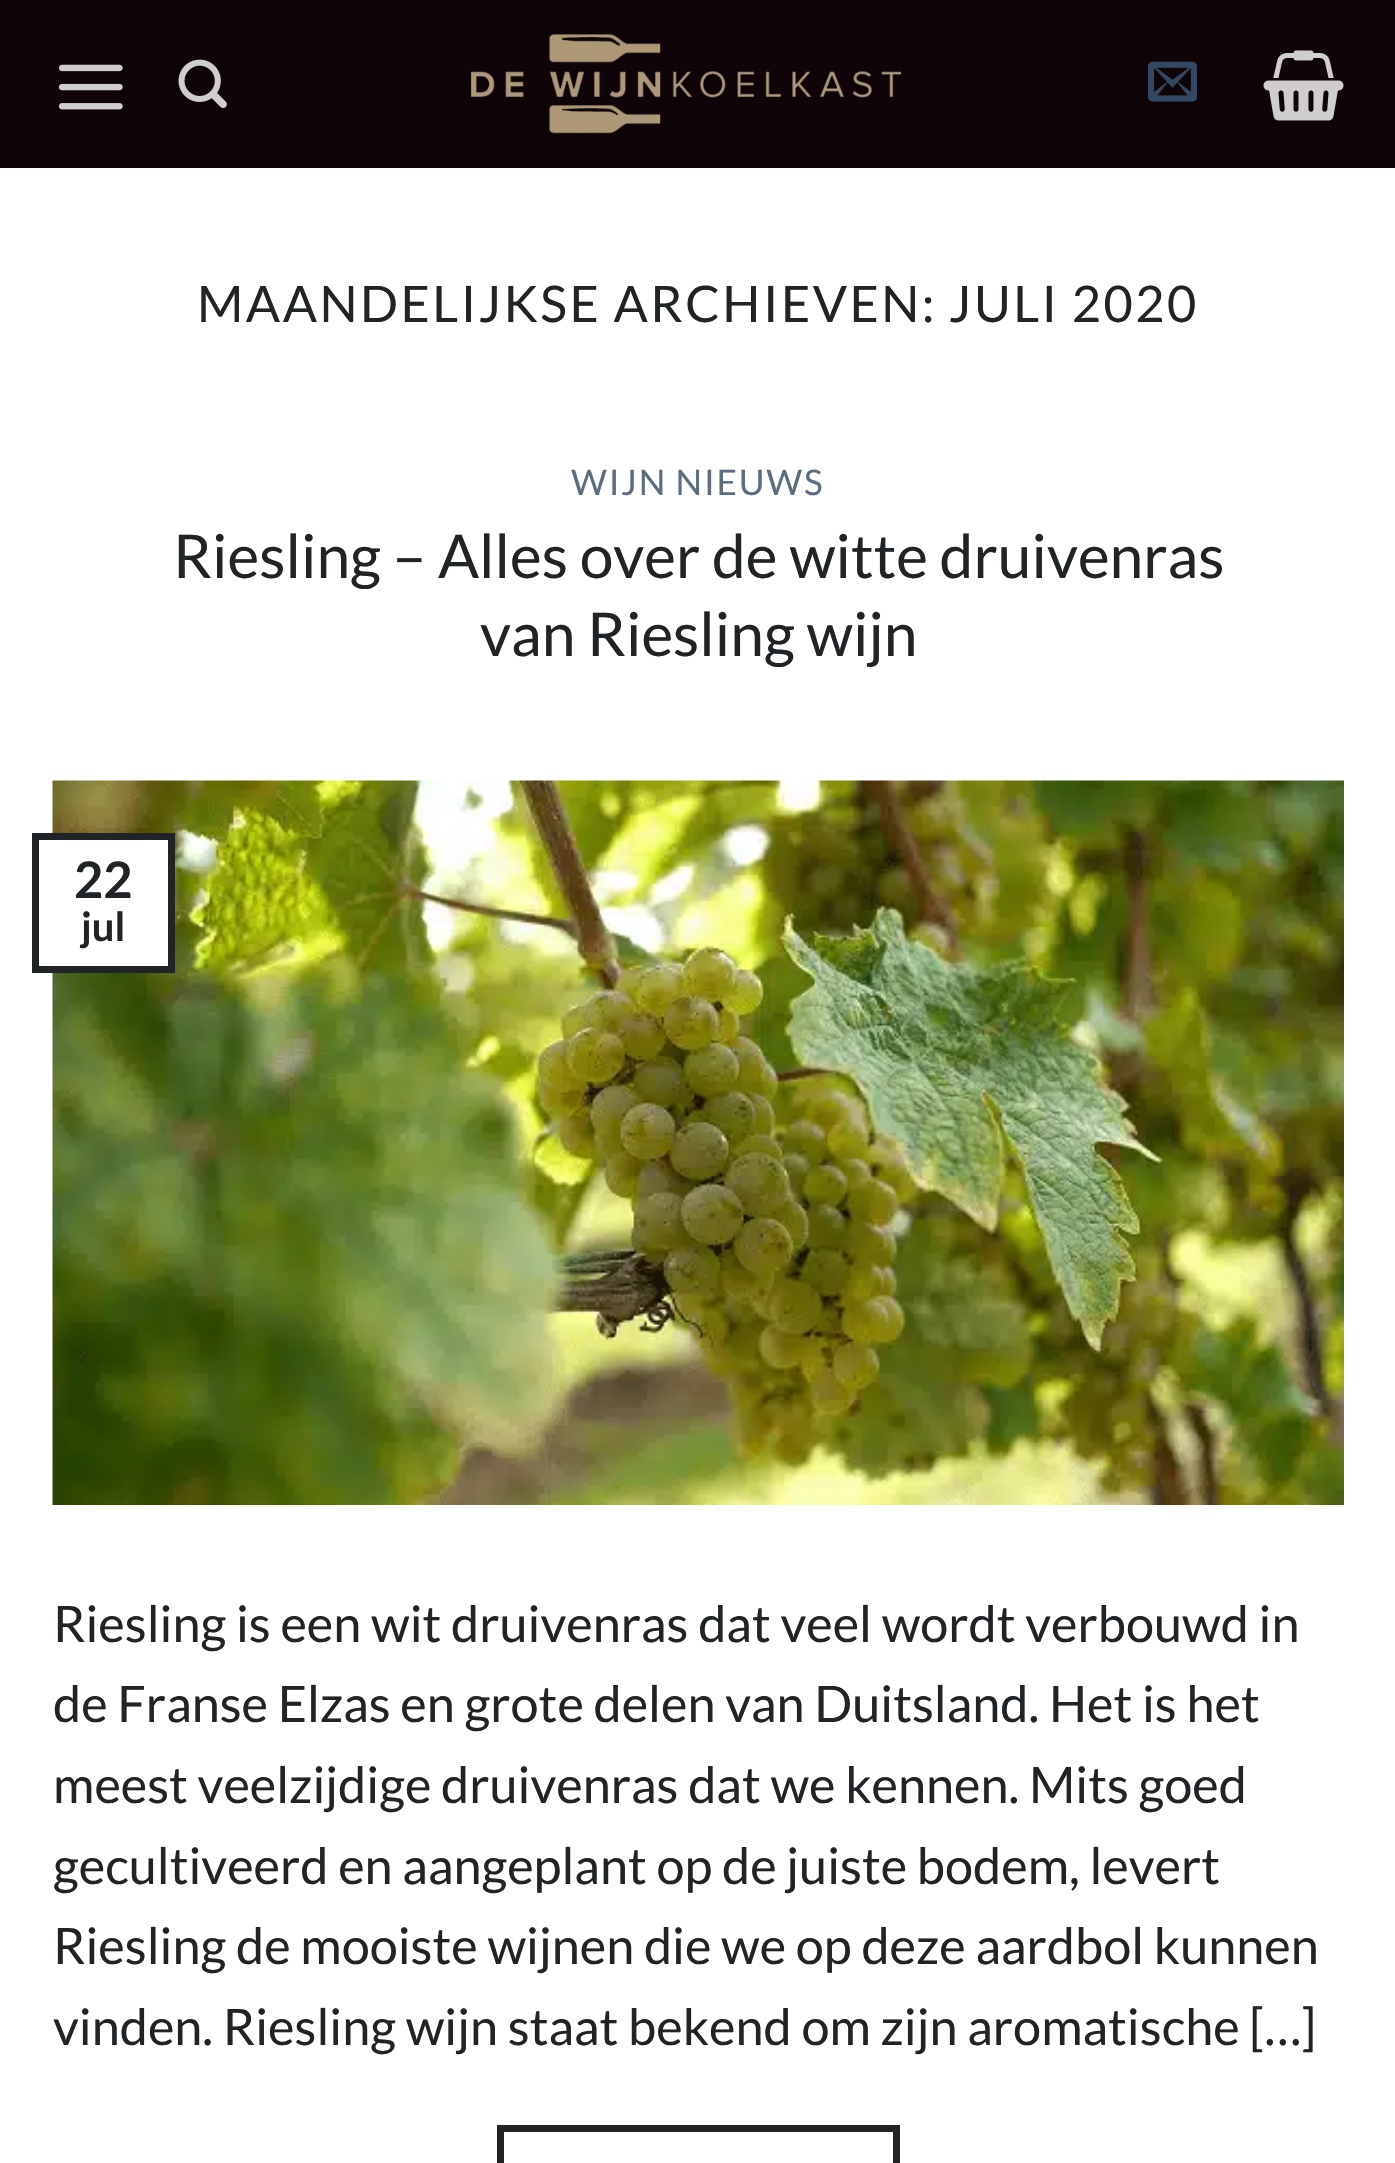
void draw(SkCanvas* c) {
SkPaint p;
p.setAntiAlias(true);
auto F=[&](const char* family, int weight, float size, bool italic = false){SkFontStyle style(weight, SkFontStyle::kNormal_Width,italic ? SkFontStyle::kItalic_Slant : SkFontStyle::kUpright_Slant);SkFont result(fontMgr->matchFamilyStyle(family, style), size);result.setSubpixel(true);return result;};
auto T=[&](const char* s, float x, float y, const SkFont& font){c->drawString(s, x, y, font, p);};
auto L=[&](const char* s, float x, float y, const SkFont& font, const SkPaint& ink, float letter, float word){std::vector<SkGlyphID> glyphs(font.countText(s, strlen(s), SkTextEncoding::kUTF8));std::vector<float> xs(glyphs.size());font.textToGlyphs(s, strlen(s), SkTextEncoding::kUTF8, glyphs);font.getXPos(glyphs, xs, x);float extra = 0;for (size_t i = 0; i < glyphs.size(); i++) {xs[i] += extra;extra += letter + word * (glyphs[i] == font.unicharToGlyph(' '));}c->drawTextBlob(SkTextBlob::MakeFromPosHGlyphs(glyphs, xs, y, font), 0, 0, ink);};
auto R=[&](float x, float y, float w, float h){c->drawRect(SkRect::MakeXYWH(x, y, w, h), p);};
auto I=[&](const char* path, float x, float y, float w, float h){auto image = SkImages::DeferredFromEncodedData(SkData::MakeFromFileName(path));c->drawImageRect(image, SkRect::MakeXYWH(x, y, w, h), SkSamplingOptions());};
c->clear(0xffffffff);
p.setColor(0xff0f0508);
R(0,0,1395,168);
I("1.png",58,64,65,46);
I("2.png",178,59,49,49);
I("3.png",471,34,430,100);
I("4.png",1148,61,49,41);
I("5.png",1263,50,81,71);
auto f1 = F("Lato",400,50.4);
p.setColor(0xff212427);
L("MAANDELIJKSE ARCHIEVEN:",197,322,f1,p,2.5,0);
L("JULI 2020",949,322,f1,p,2.5,0);
auto f2 = F("Lato",400,35.25);
p.setColor(0xff5c6d81);
L("WIJN NIEUWS",571,495,f2,p,1.75,0);
auto f3 = F("Lato",400,60.5);
p.setColor(0xff212427);
T("Riesling – Alles over de witte druivenras",173,578,f3);
T("van Riesling wijn",480,656,f3);
I("6.png",52,780,1292,725);
p.setColor(0xffffffff);
R(52,840,116,126);
p.setStroke(true);
p.setStrokeWidth(7);
p.setColor(0xff212427);
c->drawRect(SkRect::MakeXYWH(35.5,836.5,136,133),p);
auto f4 = F("Lato",700,50.4);
p.setStroke(false);
T("22",74,898,f4);
auto f5 = F("Lato",700,40);
T("jul",81,941,f5);
T("Riesling is een wit druivenras dat veel wordt verbouwd in",53,1642,f1);
T("de Franse Elzas en grote delen van Duitsland. Het is het",53,1722,f1);
T("meest veelzijdige druivenras dat we kennen. Mits goed",53,1803,f1);
T("gecultiveerd en aangeplant op de juiste bodem, levert",53,1884,f1);
T("Riesling de mooiste wijnen die we op deze aardbol kunnen",53,1964,f1);
T("vinden. Riesling wijn staat bekend om zijn aromatische […]",53,2045,f1);
p.setStroke(true);
c->drawRect(SkRect::MakeXYWH(500.5,2128.5,396,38),p);
}
